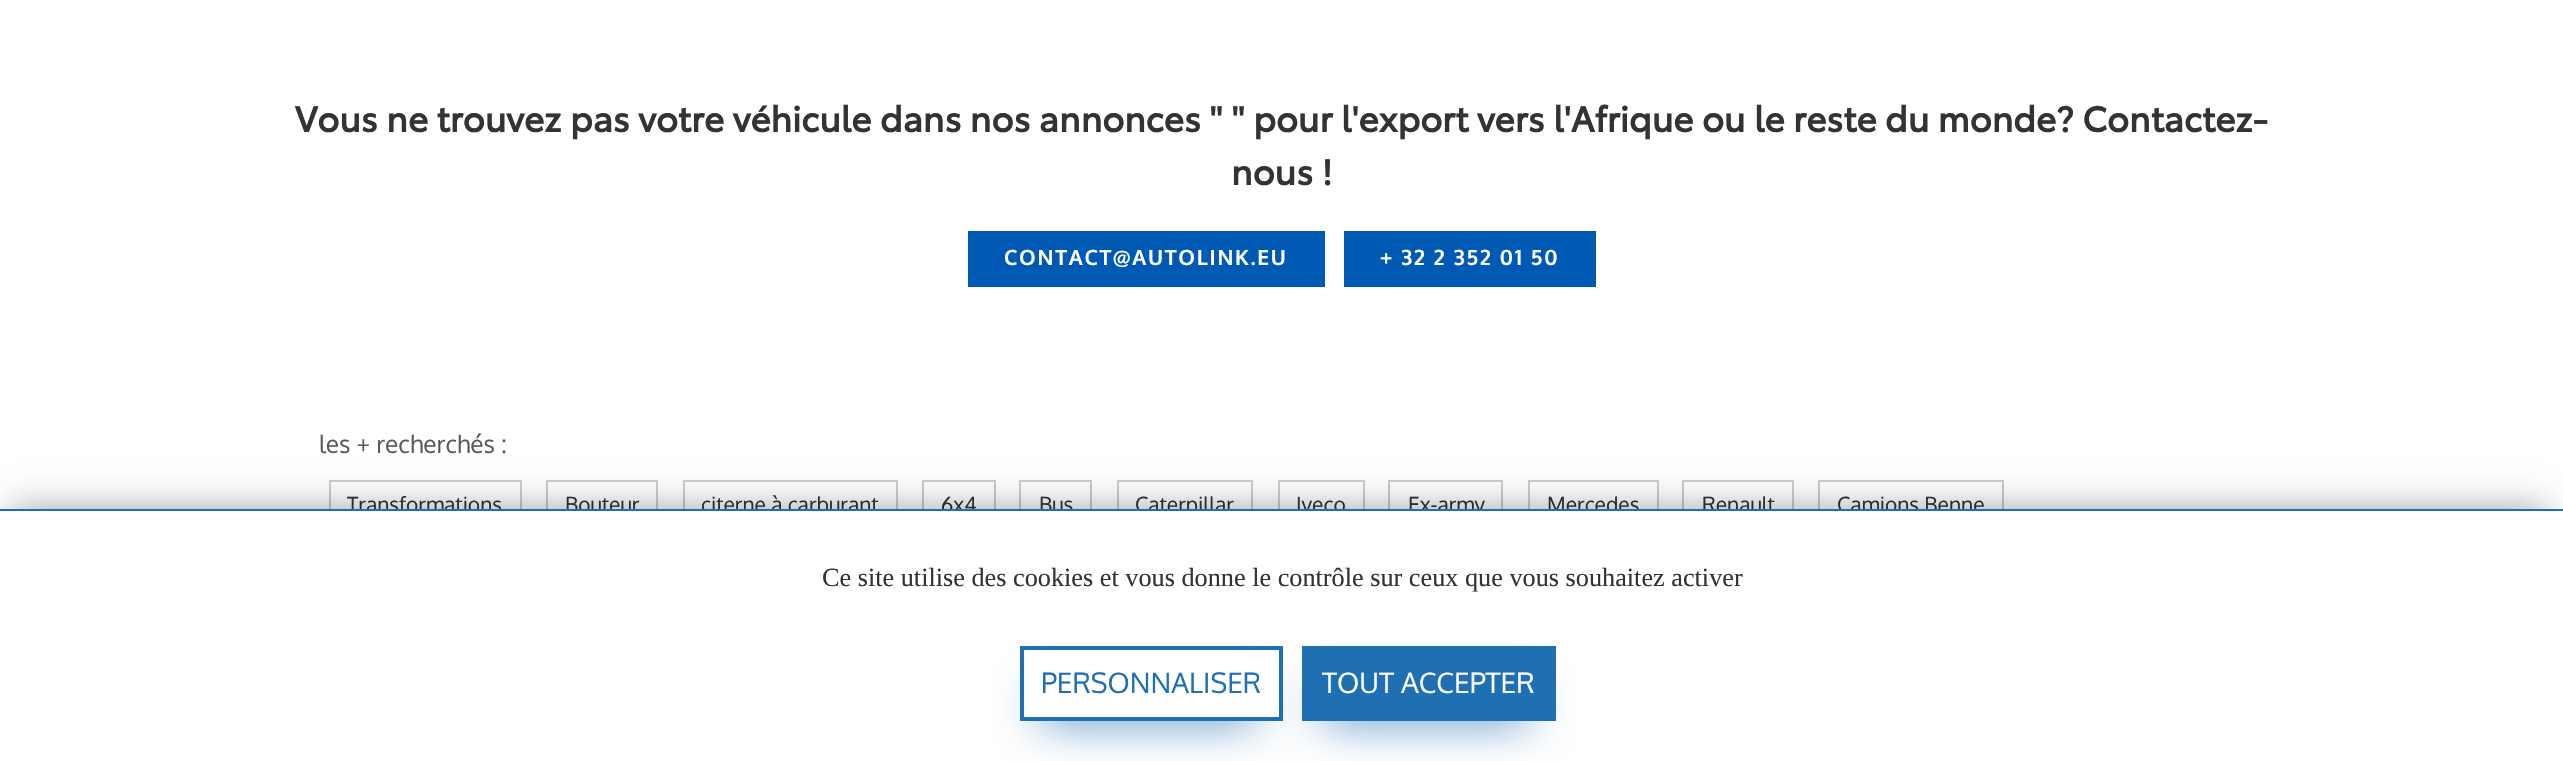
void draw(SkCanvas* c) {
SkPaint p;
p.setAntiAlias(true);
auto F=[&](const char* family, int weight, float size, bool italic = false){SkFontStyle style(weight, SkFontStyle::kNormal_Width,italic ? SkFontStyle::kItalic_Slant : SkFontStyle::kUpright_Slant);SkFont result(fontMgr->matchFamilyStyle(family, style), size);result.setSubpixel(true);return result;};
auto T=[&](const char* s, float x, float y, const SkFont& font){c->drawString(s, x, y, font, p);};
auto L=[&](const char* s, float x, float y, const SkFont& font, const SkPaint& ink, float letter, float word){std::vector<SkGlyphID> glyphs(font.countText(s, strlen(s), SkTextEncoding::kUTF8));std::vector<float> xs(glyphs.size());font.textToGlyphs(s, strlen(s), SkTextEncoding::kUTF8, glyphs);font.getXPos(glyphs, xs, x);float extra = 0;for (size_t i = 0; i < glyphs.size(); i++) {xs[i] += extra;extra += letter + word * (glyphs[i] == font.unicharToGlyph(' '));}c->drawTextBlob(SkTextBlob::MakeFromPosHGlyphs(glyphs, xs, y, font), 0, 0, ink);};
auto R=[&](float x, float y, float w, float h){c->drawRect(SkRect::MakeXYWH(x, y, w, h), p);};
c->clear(0xffffffff);
auto f1 = F("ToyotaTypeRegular",700,35);
p.setColor(0xff333333);
T("Vous ne trouvez pas votre véhicule dans nos annonces \" \" pour l'export vers l'Afrique ou le reste du monde? Contactez-",295,132,f1);
T("nous !",1231,185,f1);
p.setColor(0xff0059b2);
R(968,231,357,56);
auto f2 = F("Oxygen",700,21);
p.setColor(0xffffffff);
L("CONTACT@AUTOLINK.EU",1004,265,f2,p,1.75,0);
p.setColor(0xff0059b2);
R(1344,231,252,56);
p.setColor(0xffffffff);
L("+ 32 2 352 01 50",1380,265,f2,p,1.75,0);
auto f3 = F("Oxygen",400,24.5);
p.setColor(0xff5a5959);
T("les + recherchés :",319,453,f3);
p.setStroke(true);
p.setStrokeWidth(2);
p.setColor(0xffcccccc);
c->drawRect(SkRect::MakeXYWH(330,481,191,50),p);
auto f4 = F("Oxygen",400,21);
p.setStroke(false);
p.setColor(0xff333333);
T("Transformations",347,512,f4);
p.setStroke(true);
p.setColor(0xffcccccc);
c->drawRect(SkRect::MakeXYWH(547,481,110,50),p);
p.setStroke(false);
p.setColor(0xff333333);
T("Bouteur",565,512,f4);
p.setStroke(true);
p.setColor(0xffcccccc);
c->drawRect(SkRect::MakeXYWH(684,481,213,50),p);
p.setStroke(false);
p.setColor(0xff333333);
T("citerne à carburant",701,512,f4);
p.setStroke(true);
p.setColor(0xffcccccc);
c->drawRect(SkRect::MakeXYWH(923,481,72,50),p);
p.setStroke(false);
p.setColor(0xff333333);
T("6x4",941,512,f4);
p.setStroke(true);
p.setColor(0xffcccccc);
c->drawRect(SkRect::MakeXYWH(1020,481,71,50),p);
p.setStroke(false);
p.setColor(0xff333333);
T("Bus",1039,512,f4);
p.setStroke(true);
p.setColor(0xffcccccc);
c->drawRect(SkRect::MakeXYWH(1118,481,134,50),p);
p.setStroke(false);
p.setColor(0xff333333);
T("Caterpillar",1135,512,f4);
p.setStroke(true);
p.setColor(0xffcccccc);
c->drawRect(SkRect::MakeXYWH(1279,481,85,50),p);
p.setStroke(false);
p.setColor(0xff333333);
T("Iveco",1296,512,f4);
p.setStroke(true);
p.setColor(0xffcccccc);
c->drawRect(SkRect::MakeXYWH(1389,481,113,50),p);
p.setStroke(false);
p.setColor(0xff333333);
T("Ex-army",1408,512,f4);
p.setStroke(true);
p.setColor(0xffcccccc);
c->drawRect(SkRect::MakeXYWH(1529,481,129,50),p);
p.setStroke(false);
p.setColor(0xff333333);
T("Mercedes",1547,512,f4);
p.setStroke(true);
p.setColor(0xffcccccc);
c->drawRect(SkRect::MakeXYWH(1683,481,110,50),p);
p.setStroke(false);
p.setColor(0xff333333);
T("Renault",1702,512,f4);
p.setStroke(true);
p.setColor(0xffcccccc);
c->drawRect(SkRect::MakeXYWH(1819,481,184,50),p);
p.setStroke(false);
p.setColor(0xff333333);
T("Camions Benne",1837,512,f4);
p.setColor(0x5e000000);
p.setMaskFilter(SkMaskFilter::MakeBlur(kNormal_SkBlurStyle, 17.5));
c->drawRect(SkRect::MakeXYWH(11,509,2535,224),p);
p.setMaskFilter(nullptr);
p.setColor(0xffffffff);
R(0,511,2563,250);
p.setColor(0xff1f6fb3);
R(0,509,2563,2);
auto f5 = F("Liberation Serif",400,26.25);
p.setColor(0xff333333);
T("Ce site utilise des cookies et vous donne le contrôle sur ceux que vous souhaitez activer",822,586,f5);
p.setColor(0xff1f6fb3);
p.setMaskFilter(SkMaskFilter::MakeBlur(kNormal_SkBlurStyle, 23.5));
c->drawRect(SkRect::MakeXYWH(1041,693,214,26),p);
p.setMaskFilter(nullptr);
p.setColor(0xffffffff);
c->drawRect(SkRect::MakeXYWH(1022,648,259,71),p);
p.setStroke(true);
p.setStrokeWidth(4);
p.setColor(0xff1f6fb3);
c->drawRect(SkRect::MakeXYWH(1022,648,259,71),p);
auto f6 = F("Oxygen",400,28);
p.setStroke(false);
T("PERSONNALISER",1041,693,f6);
p.setMaskFilter(SkMaskFilter::MakeBlur(kNormal_SkBlurStyle, 23.5));
c->drawRect(SkRect::MakeXYWH(1323,693,205,26),p);
p.setMaskFilter(nullptr);
R(1302,646,254,75);
p.setColor(0xffffffff);
T("TOUT ACCEPTER",1322,693,f6);
}
